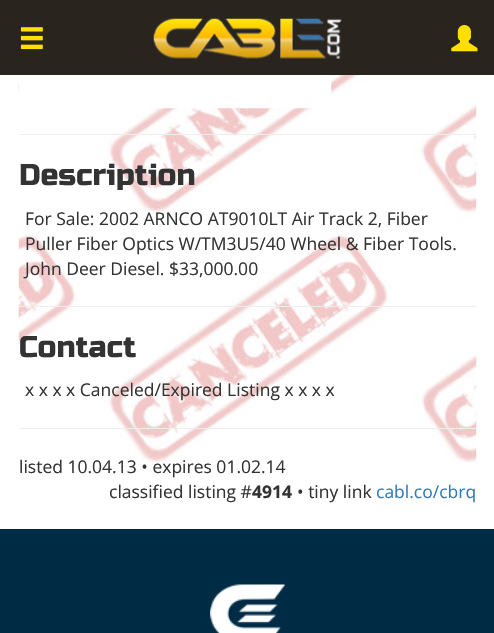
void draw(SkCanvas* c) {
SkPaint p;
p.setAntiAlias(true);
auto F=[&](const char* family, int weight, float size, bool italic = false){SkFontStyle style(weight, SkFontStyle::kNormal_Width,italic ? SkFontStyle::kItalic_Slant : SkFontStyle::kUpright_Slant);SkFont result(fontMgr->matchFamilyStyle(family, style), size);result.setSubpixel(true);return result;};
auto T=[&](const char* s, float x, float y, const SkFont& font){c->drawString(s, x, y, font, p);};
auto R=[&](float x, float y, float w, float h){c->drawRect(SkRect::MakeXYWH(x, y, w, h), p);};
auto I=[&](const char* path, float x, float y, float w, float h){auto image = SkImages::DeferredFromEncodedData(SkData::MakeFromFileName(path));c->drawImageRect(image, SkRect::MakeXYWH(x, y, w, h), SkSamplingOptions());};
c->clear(0xffffffff);
p.setColor(0xff29251e);
R(0,0,494,75);
I("1.png",20,27,23,23);
I("2.png",153,18,189,41);
I("3.png",451,25,27,27);
I("4.png",18,75,459,388);
I("5.png",19,75,313,34);
p.setColor(0xffeeeeee);
R(19,134,457,1);
auto f1 = F("Russo One",400,30);
p.setColor(0xff333333);
T("Description",19,185,f1);
auto f2 = F("Open Sans",400,17.5);
T("For Sale: 2002 ARNCO AT9010LT Air Track 2, Fiber",25,225,f2);
T("Puller Fiber Optics W/TM3U5/40 Wheel & Fiber Tools.",25,250,f2);
T("John Deer Diesel. $33,000.00",25,275,f2);
p.setColor(0xffeeeeee);
R(19,306,457,1);
p.setColor(0xff333333);
T("Contact",19,357,f1);
T("x x x x Canceled/Expired Listing x x x x",25,396,f2);
p.setColor(0xffeeeeee);
R(19,428,457,1);
p.setColor(0xff333333);
T("listed 10.04.13 • expires 01.02.14",19,473,f2);
T("classified listing #",109,498,f2);
auto f3 = F("Open Sans",700,17.5);
T("4914",252,498,f3);
T("• tiny link",297,498,f2);
p.setColor(0xff337ab7);
T("cabl.co/cbrq",376,498,f2);
p.setColor(0xff002b45);
R(0,529,494,104);
I("6.png",210,584,75,49);
}
